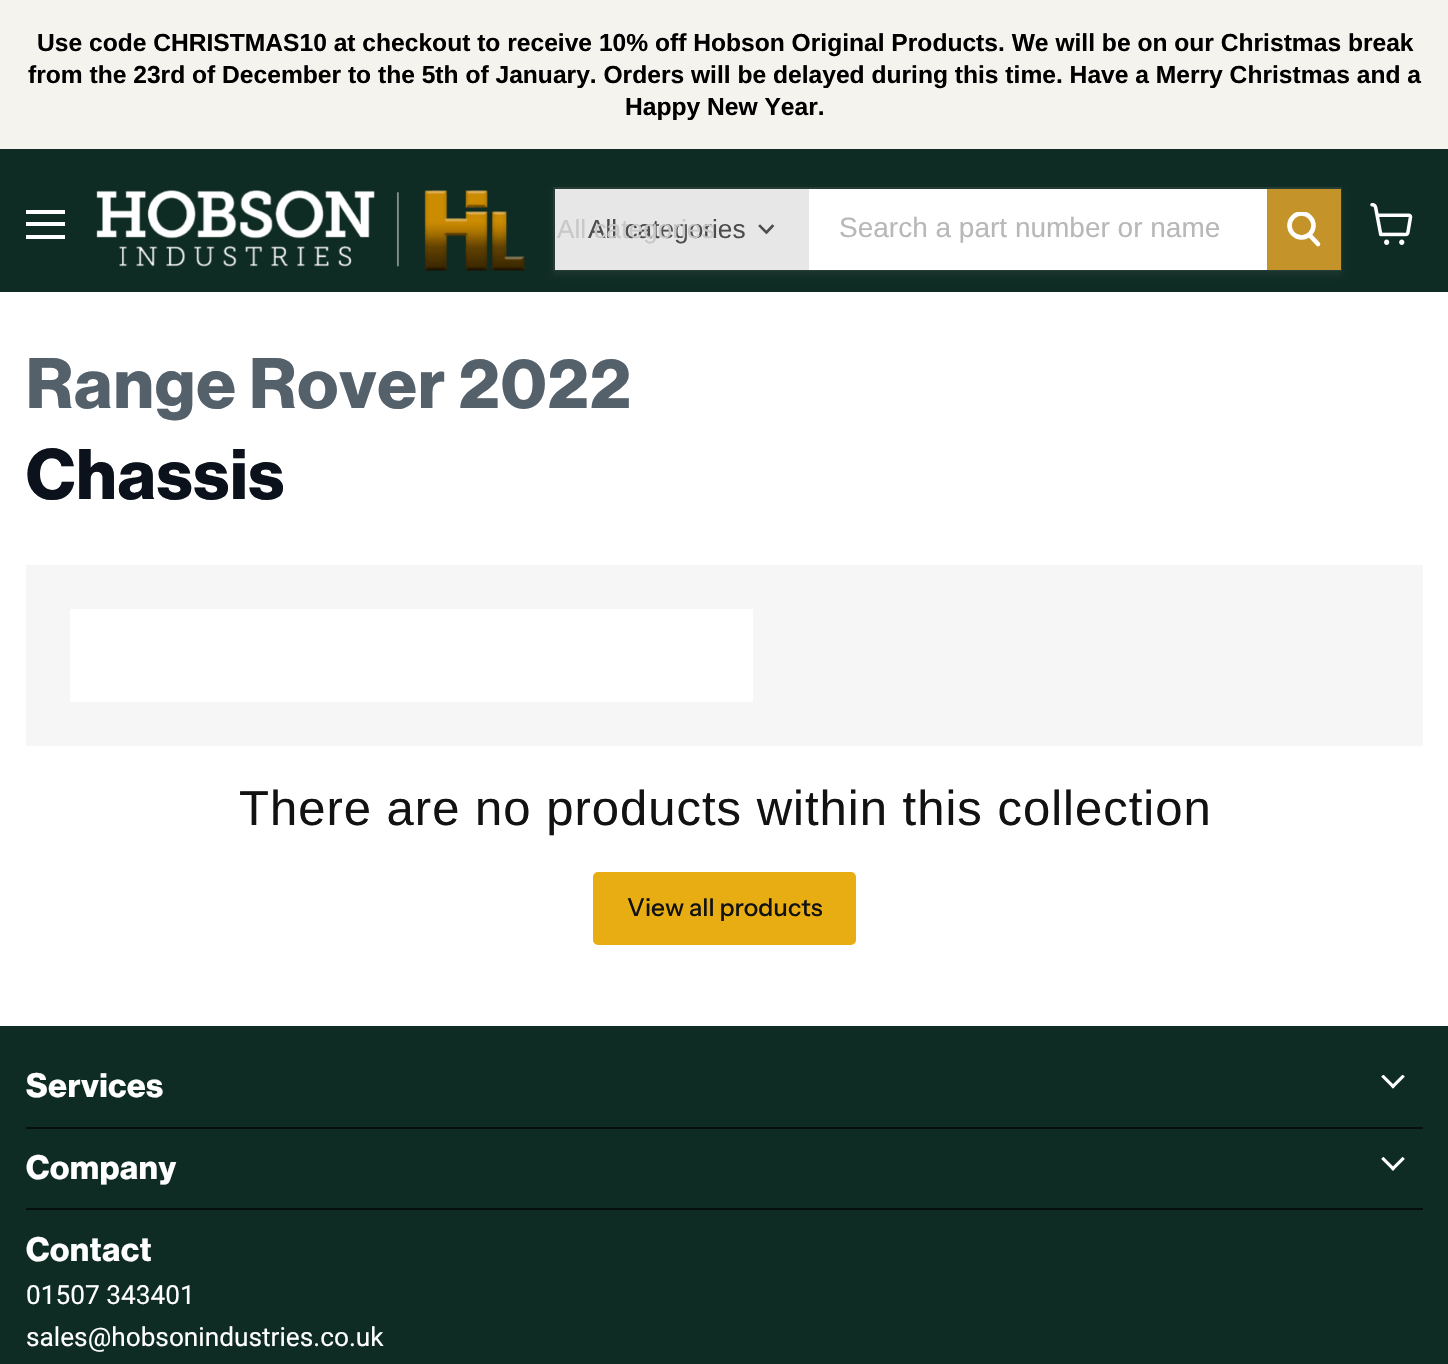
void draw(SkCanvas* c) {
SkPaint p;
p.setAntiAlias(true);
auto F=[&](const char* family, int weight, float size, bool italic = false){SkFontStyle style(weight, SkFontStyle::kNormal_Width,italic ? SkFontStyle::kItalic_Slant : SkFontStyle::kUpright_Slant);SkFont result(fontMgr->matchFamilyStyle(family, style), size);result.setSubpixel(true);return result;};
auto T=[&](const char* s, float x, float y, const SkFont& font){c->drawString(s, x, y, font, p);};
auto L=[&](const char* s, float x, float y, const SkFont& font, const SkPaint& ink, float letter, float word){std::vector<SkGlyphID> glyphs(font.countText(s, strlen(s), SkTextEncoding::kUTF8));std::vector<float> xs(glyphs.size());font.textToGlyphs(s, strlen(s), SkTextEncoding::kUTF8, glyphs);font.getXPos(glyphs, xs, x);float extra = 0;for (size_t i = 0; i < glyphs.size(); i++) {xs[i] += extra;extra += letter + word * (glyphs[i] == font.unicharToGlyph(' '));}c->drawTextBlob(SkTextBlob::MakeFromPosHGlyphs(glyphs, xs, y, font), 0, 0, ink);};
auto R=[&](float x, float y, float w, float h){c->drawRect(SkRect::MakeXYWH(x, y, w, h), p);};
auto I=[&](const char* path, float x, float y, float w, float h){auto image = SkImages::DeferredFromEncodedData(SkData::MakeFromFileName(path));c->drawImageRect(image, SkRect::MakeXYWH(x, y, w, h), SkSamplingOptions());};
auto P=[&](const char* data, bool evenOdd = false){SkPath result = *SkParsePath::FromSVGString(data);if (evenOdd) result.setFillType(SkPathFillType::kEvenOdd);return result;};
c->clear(0xffffffff);
p.setColor(0xfff5f3ed);
R(0,0,1448,149);
auto f1 = F("Liberation Sans",700,24.6);
p.setColor(0xff000000);
T("Use code CHRISTMAS10 at checkout to receive 10% off Hobson Original Products. We will be on our Christmas break",37,51,f1);
T("from the 23rd of December to the 5th of January. Orders will be delayed during this time. Have a Merry Christmas and a",28,83,f1);
T("Happy New Year.",625,115,f1);
p.setColor(0xff0f2c24);
R(0,149,1448,143);
p.setColor(0xffffffff);
R(26,210,39,4);
R(26,222,39,4);
R(26,235,39,4);
I("1.png",96,190,429,81);
p.setColor(0x1c808080);
p.setMaskFilter(SkMaskFilter::MakeBlur(kNormal_SkBlurStyle, 2.5));
c->drawRect(SkRect::MakeXYWH(553,191,789,84),p);
p.setMaskFilter(nullptr);
p.setStroke(true);
p.setStrokeWidth(2);
p.setColor(0xff263d36);
c->drawRect(SkRect::MakeXYWH(554,188,787,82),p);
p.setStroke(false);
p.setColor(0xffe7e7e7);
R(555,189,254,81);
auto f2 = F("Liberation Sans",400,26.25);
p.setColor(0xff4d4d4d);
T("All categories",588,238,f2);
p.setColor(0xffc8c8c8);
T("All categories",557,238,f2);
p.setStroke(true);
p.setStrokeWidth(2.6);
p.setStrokeCap(SkPaint::kSquare_Cap);
p.setColor(0xff4d4d4d);
c->drawPath(P("M766.5 232.5l6-6.5m-6 6.5l-6.5-6.5"),p);
p.setStroke(false);
p.setColor(0xffffffff);
R(809,189,458,81);
auto f3 = F("Liberation Sans",400,28);
p.setColor(0xffb8b8b8);
T("Search a part number or name",839,237,f3);
p.setColor(0xffc49329);
R(1267,189,74,81);
p.setStroke(true);
p.setStrokeWidth(4.6);
p.setStrokeCap(SkPaint::kRound_Cap);
p.setColor(0xffffffff);
c->drawPath(P("M1318 244l-8-8.5"),p);
c->save();
c->clipRect(SkRect::MakeXYWH(1286,212,35,37));
p.setStrokeCap(SkPaint::kButt_Cap);
c->drawCircle(1301.5,225.5,12,p);
c->restore();
I("2.png",1370,203,43,42);
auto f4 = F("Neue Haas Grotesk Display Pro",700,70);
p.setStroke(false);
p.setColor(0xff54616b);
L("Range Rover 2022",26,408,f4,p,1.4,0);
p.setColor(0xff0c121c);
L("Chassis",26,499,f4,p,1.4,0);
p.setColor(0xfff6f6f6);
R(26,565,1397,181);
p.setColor(0xffffffff);
R(70,609,683,93);
auto f5 = F("Liberation Sans",400,49);
p.setColor(0xff121212);
L("There are no products within this collection",239,825,f5,p,1,0);
p.setColor(0xffe9ad14);
c->drawRoundRect(SkRect::MakeXYWH(594,873,261,71),4,4,p);
p.setStroke(true);
p.setStrokeWidth(2);
c->drawRoundRect(SkRect::MakeXYWH(594,873,261,71),4,4,p);
auto f6 = F("Instrument Sans",500,24.5);
p.setStroke(false);
p.setColor(0xff121212);
T("View all products",627,916,f6);
p.setColor(0xff0f2c24);
R(0,1026,1448,338);
p.setColor(0xff050f0d);
R(26,1127,1397,2);
auto f7 = F("Neue Haas Grotesk Display Pro",700,33.25);
p.setColor(0xffffffff);
L("Services",26,1097,f7,p,.75,0);
I("3.png",1381,1075,24,14);
p.setColor(0xff050f0d);
R(26,1208,1397,2);
p.setColor(0xffffffff);
L("Company",26,1179,f7,p,.75,0);
I("4.png",1381,1157,24,14);
L("Contact",26,1261,f7,p,.75,0);
auto f8 = F("Roboto",400,26.25);
T("01507 343401",26,1304,f8);
T("sales@hobsonindustries.co.uk",26,1346,f8);
}
